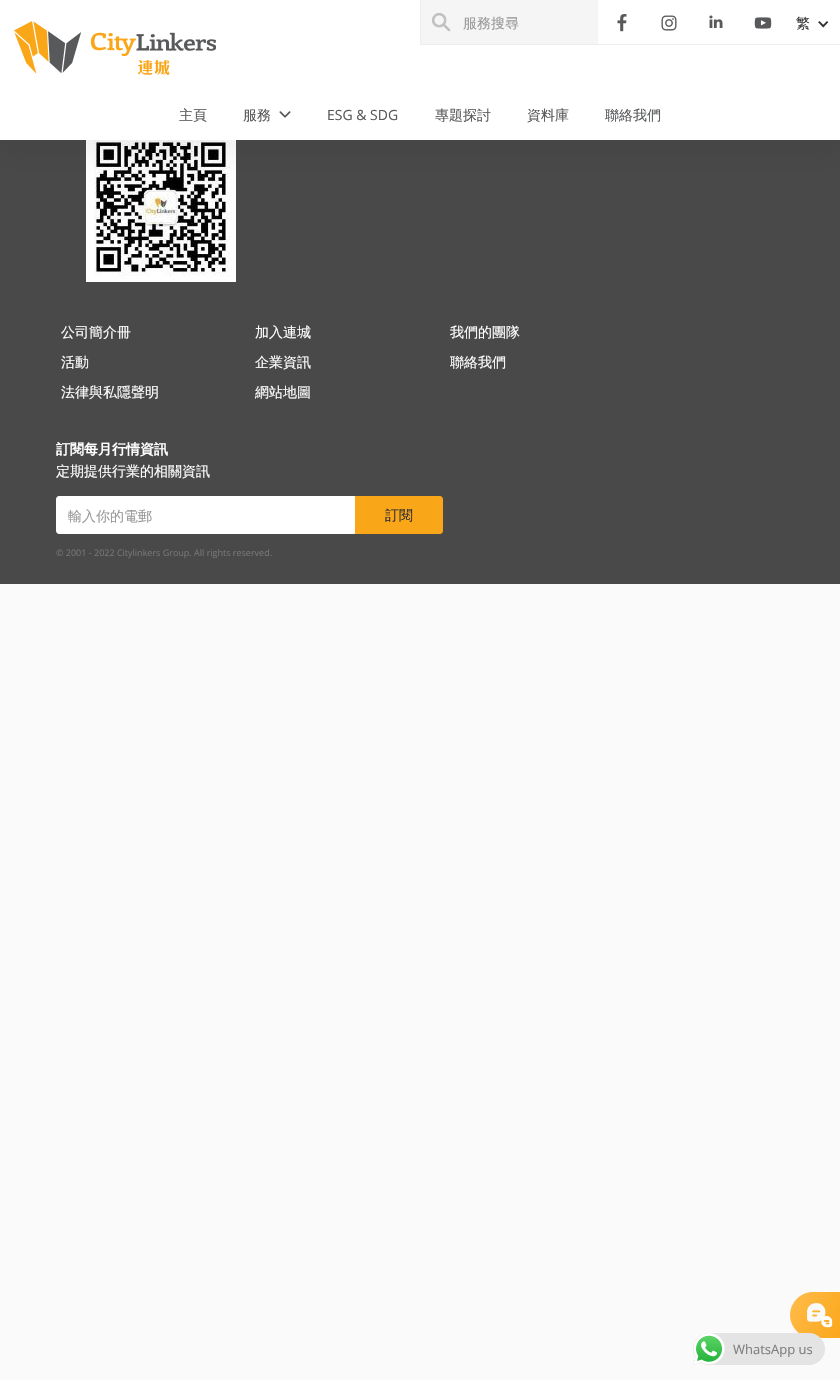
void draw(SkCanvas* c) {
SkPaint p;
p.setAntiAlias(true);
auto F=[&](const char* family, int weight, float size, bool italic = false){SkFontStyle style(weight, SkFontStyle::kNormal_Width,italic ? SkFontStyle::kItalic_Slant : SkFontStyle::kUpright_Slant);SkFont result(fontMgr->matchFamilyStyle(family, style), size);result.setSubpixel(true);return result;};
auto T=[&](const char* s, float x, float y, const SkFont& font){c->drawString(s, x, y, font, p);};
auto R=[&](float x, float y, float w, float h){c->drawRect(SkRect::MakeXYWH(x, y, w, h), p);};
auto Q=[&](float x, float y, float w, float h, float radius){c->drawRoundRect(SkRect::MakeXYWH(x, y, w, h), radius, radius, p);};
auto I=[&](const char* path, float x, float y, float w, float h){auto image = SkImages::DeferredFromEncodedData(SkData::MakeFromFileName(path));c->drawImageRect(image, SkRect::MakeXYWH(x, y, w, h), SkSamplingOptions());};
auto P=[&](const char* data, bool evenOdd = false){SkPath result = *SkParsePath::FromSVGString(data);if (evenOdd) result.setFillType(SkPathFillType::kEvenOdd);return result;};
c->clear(0xfffafafa);
p.setColor(0xff494949);
R(0,140,840,444);
I("10.png",86,140,150,142);
p.setColor(0x0d000000);
p.setMaskFilter(SkMaskFilter::MakeBlur(kNormal_SkBlurStyle, 10));
c->drawRect(SkRect::MakeXYWH(0,16,840,140),p);
p.setMaskFilter(nullptr);
p.setColor(0xffffffff);
R(0,0,840,140);
p.setColor(0xffededed);
R(420,44,420,1);
R(420,0,1,45);
p.setColor(0xfff5f5f5);
R(421,0,177,44);
I("1.png",432,13,19,19);
auto f1 = F("WenQuanYi Zen Hei",500,14);
p.setColor(0xff999999);
T("服務搜尋",463,28,f1);
I("2.png",617,14,10,18);
I("3.png",661,15,16,16);
I("4.png",709,15,14,13);
I("5.png",754,17,18,12);
p.setColor(0xff303030);
T("繁",796,28,f1);
I("6.png",818,21,11,7);
I("7.png",14,21,202,54);
p.setColor(0xff58595b);
T("主頁",179,120,f1);
I("8.png",279,111,12,7);
T("服務",243,120,f1);
auto f2 = F("Open Sans",400,14);
T("ESG & SDG",327,120,f2);
T("專題探討",435,120,f1);
T("資料庫",527,120,f1);
T("聯絡我們",605,120,f1);
{
const SkColor colors[] = {0xffffbc4b,0xfffaa619,0xfffaa619};
const float stops[] = {0,.48,1};
const SkPoint ends[] = {{797,1280}, {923,1350}};
p.setShader(SkGradientShader::MakeLinear(ends, colors, stops, 3, SkTileMode::kClamp));
p.setAlpha(255);
}
c->drawPath(P("M813 1292h27v46h-27c-12.5 0-23-10.5-23-23c0-12.5 10.5-23 23-23z"),p);
I("9.png",807,1303,26,25);
p.setShader(nullptr);
p.setColor(0xffffffff);
T("公司簡介冊",61,337,f1);
T("加入連城",255,337,f1);
T("我們的團隊",450,337,f1);
T("活動",61,367,f1);
T("企業資訊",255,367,f1);
T("聯絡我們",450,367,f1);
T("法律與私隱聲明",61,397,f1);
T("網站地圖",255,397,f1);
auto f3 = F("WenQuanYi Zen Hei",700,14);
T("訂閱每月行情資訊",56,454,f3);
T("定期提供行業的相關資訊",56,476,f1);
c->drawPath(P("M59 496h297v38h-297c-1.5 0-3-1.5-3-3v-32c0-1.5 1.5-3 3-3z"),p);
c->save();
c->clipRect(SkRect::MakeXYWH(68,506,276,20));
p.setColor(0xff999999);
T("輸入你的電郵",68,521,f1);
c->restore();
p.setColor(0xfffaa619);
c->drawPath(P("M355 496h85c1.5 0 3 1.5 3 3v32c0 1.5-1.5 3-3 3h-85z"),p);
p.setColor(0xff303030);
T("訂閱",385,520,f1);
auto f4 = F("Open Sans",400,9);
p.setColor(0xff767676);
T("© 2001 - 2022 Citylinkers Group. All rights reserved.",56,556,f4);
p.setColor(0xffe4e4e4);
Q(693,1333,132,32,16);
I("11.png",693,1333,32,32);
auto f5 = F("Open Sans",400,13);
p.setColor(0xff7f7d7d);
T("WhatsApp us",733,1354,f5);
}
